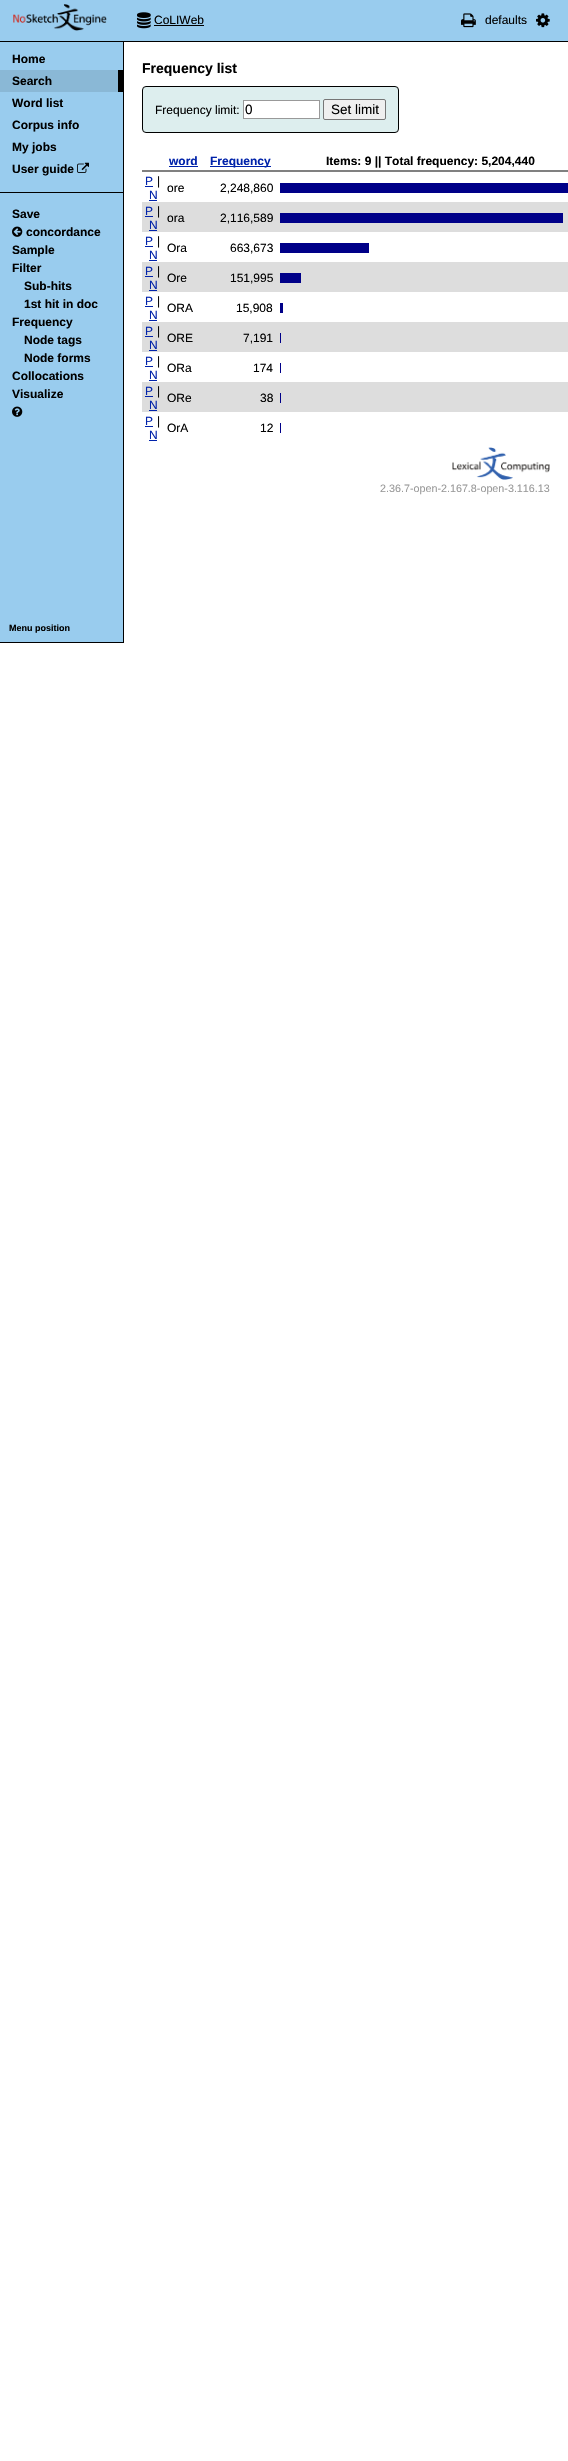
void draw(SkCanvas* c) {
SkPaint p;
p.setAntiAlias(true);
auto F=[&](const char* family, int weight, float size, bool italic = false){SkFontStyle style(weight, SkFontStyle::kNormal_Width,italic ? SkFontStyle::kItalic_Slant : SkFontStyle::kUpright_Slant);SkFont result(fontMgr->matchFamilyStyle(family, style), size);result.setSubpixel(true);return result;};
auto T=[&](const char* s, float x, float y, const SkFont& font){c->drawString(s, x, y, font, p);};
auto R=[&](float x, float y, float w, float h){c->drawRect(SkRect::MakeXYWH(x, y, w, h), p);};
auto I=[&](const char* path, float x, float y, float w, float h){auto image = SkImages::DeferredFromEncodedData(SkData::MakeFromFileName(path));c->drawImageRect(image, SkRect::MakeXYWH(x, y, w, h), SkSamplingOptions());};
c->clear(0xffffffff);
p.setColor(0xff99ccee);
R(0,0,568,41);
p.setColor(0xff000000);
R(0,41,568,1);
I("1.png",13,4,94,27);
I("2.png",137,12,14,17);
auto f1 = F("Liberation Sans",400,12);
T("CoLIWeb",154,24,f1);
R(154,25,50,1);
I("3.png",461,13,15,15);
T("defaults",485,24,f1);
I("4.png",536,13,14,15);
p.setColor(0xff99ccee);
R(0,42,123,600);
p.setColor(0xff000000);
R(123,42,1,601);
R(0,642,124,1);
auto f2 = F("Liberation Sans",700,12);
T("Home",12,63,f2);
p.setColor(0xff8ab8d6);
R(0,70,118,22);
p.setColor(0xff000000);
R(118,70,5,22);
T("Search",12,85,f2);
T("Word list",12,107,f2);
T("Corpus info",12,129,f2);
T("My jobs",12,151,f2);
T("User guide",12,173,f2);
I("5.png",77,162,12,11);
R(0,192,123,1);
T("Save",12,218,f2);
I("6.png",12,226,11,11);
T("concordance",26,236,f2);
T("Sample",12,254,f2);
T("Filter",12,272,f2);
T("Sub-hits",24,290,f2);
T("1st hit in doc",24,308,f2);
T("Frequency",12,326,f2);
T("Node tags",24,344,f2);
T("Node forms",24,362,f2);
T("Collocations",12,380,f2);
T("Visualize",12,398,f2);
I("7.png",12,406,11,11);
auto f3 = F("Liberation Sans",700,9);
T("Menu position",9,631,f3);
auto f4 = F("Liberation Sans",700,14);
T("Frequency list",142,73,f4);
p.setColor(0xffddeeee);
c->drawRoundRect(SkRect::MakeXYWH(142.5,86.5,256,46),3.5,3.5,p);
p.setStroke(true);
p.setStrokeWidth(1);
p.setColor(0xff000000);
c->drawRoundRect(SkRect::MakeXYWH(142.5,86.5,256,46),3.5,3.5,p);
p.setStroke(false);
T("Frequency limit:",155,114,f1);
p.setColor(0xffffffff);
c->drawRect(SkRect::MakeXYWH(243.5,100.5,76,18),p);
p.setStroke(true);
p.setColor(0xff999999);
c->drawRect(SkRect::MakeXYWH(243.5,100.5,76,18),p);
auto f5 = F("Liberation Sans",400,13.5);
p.setStroke(false);
p.setColor(0xff000000);
T("0",245,114,f5);
p.setColor(0xffefefef);
c->drawRoundRect(SkRect::MakeXYWH(323.5,99.5,62,20),1.5,1.5,p);
p.setStroke(true);
p.setColor(0xff767676);
c->drawRoundRect(SkRect::MakeXYWH(323.5,99.5,62,20),1.5,1.5,p);
p.setStroke(false);
p.setColor(0xff000000);
T("Set limit",331,114,f5);
p.setColor(0xff0022aa);
T("word",169,165,f2);
R(169,166,29,1);
R(210,166,61,1);
T("Frequency",210,165,f2);
p.setColor(0xff000000);
T("Items: 9 || Total frequency: 5,204,440",326,165,f2);
p.setColor(0xff808080);
R(142,170,426,2);
p.setColor(0xff0022aa);
T("P",145,185,f1);
R(145,186,8,1);
p.setColor(0xff000000);
T("|",157,185,f1);
p.setColor(0xff0022aa);
T("N",149,199,f1);
R(149,200,8,1);
p.setColor(0xff000000);
T("ore",167,192,f1);
T("2,248,860",220,192,f1);
p.setColor(0xff000088);
R(280,183,288,10);
p.setColor(0xffdddddd);
R(142,202,426,30);
p.setColor(0xff0022aa);
T("P",145,215,f1);
R(145,216,8,1);
p.setColor(0xff000000);
T("|",157,215,f1);
p.setColor(0xff0022aa);
T("N",149,229,f1);
R(149,230,8,1);
p.setColor(0xff000000);
T("ora",167,222,f1);
T("2,116,589",220,222,f1);
p.setColor(0xff000088);
R(280,213,283,10);
p.setColor(0xff0022aa);
T("P",145,245,f1);
R(145,246,8,1);
p.setColor(0xff000000);
T("|",157,245,f1);
p.setColor(0xff0022aa);
T("N",149,259,f1);
R(149,260,8,1);
p.setColor(0xff000000);
T("Ora",167,252,f1);
T("663,673",230,252,f1);
p.setColor(0xff000088);
R(280,243,89,10);
p.setColor(0xffdddddd);
R(142,262,426,30);
p.setColor(0xff0022aa);
T("P",145,275,f1);
R(145,276,8,1);
p.setColor(0xff000000);
T("|",157,275,f1);
p.setColor(0xff0022aa);
T("N",149,289,f1);
R(149,290,8,1);
p.setColor(0xff000000);
T("Ore",167,282,f1);
T("151,995",230,282,f1);
p.setColor(0xff000088);
R(280,273,21,10);
p.setColor(0xff0022aa);
T("P",145,305,f1);
R(145,306,8,1);
p.setColor(0xff000000);
T("|",157,305,f1);
p.setColor(0xff0022aa);
T("N",149,319,f1);
R(149,320,8,1);
p.setColor(0xff000000);
T("ORA",167,312,f1);
T("15,908",236,312,f1);
p.setColor(0xff000088);
R(280,303,3,10);
p.setColor(0xffdddddd);
R(142,322,426,30);
p.setColor(0xff0022aa);
T("P",145,335,f1);
R(145,336,8,1);
p.setColor(0xff000000);
T("|",157,335,f1);
p.setColor(0xff0022aa);
T("N",149,349,f1);
R(149,350,8,1);
p.setColor(0xff000000);
T("ORE",167,342,f1);
T("7,191",243,342,f1);
p.setColor(0xff000088);
R(280,333,1,10);
p.setColor(0xff0022aa);
T("P",145,365,f1);
R(145,366,8,1);
p.setColor(0xff000000);
T("|",157,365,f1);
p.setColor(0xff0022aa);
T("N",149,379,f1);
R(149,380,8,1);
p.setColor(0xff000000);
T("ORa",167,372,f1);
T("174",253,372,f1);
p.setColor(0xff000088);
R(280,363,1,10);
p.setColor(0xffdddddd);
R(142,382,426,30);
p.setColor(0xff0022aa);
T("P",145,395,f1);
R(145,396,8,1);
p.setColor(0xff000000);
T("|",157,395,f1);
p.setColor(0xff0022aa);
T("N",149,409,f1);
R(149,410,8,1);
p.setColor(0xff000000);
T("ORe",167,402,f1);
T("38",260,402,f1);
p.setColor(0xff000088);
R(280,393,1,10);
p.setColor(0xff0022aa);
T("P",145,425,f1);
R(145,426,8,1);
p.setColor(0xff000000);
T("|",157,425,f1);
p.setColor(0xff0022aa);
T("N",149,439,f1);
R(149,440,8,1);
p.setColor(0xff000000);
T("OrA",167,432,f1);
T("12",260,432,f1);
p.setColor(0xff000088);
R(280,423,1,10);
I("8.png",452,447,98,33);
auto f6 = F("Liberation Sans",400,10.75);
p.setColor(0xff999999);
T("2.36.7-open-2.167.8-open-3.116.13",380,492,f6);
}
